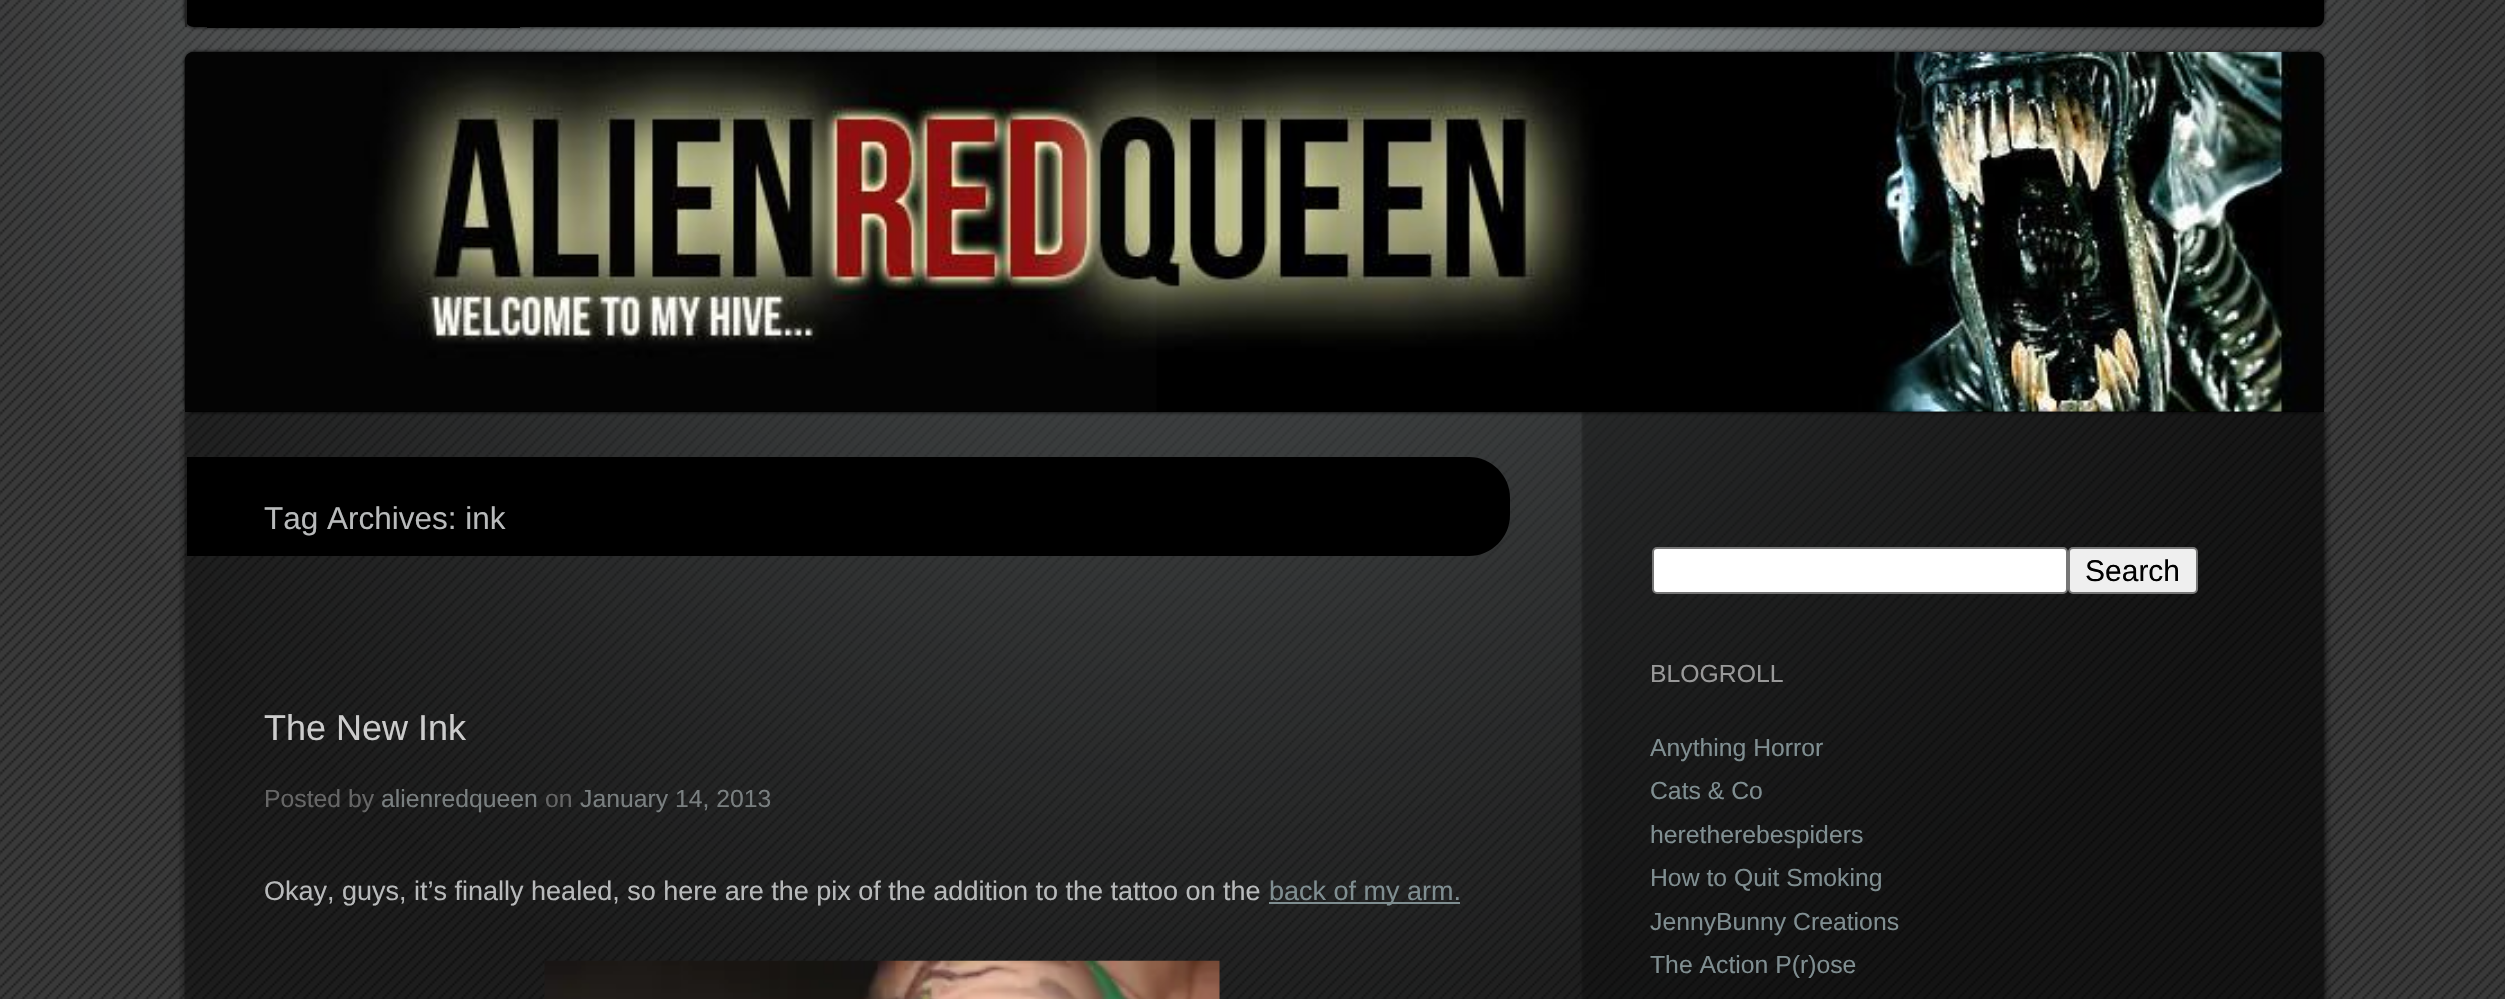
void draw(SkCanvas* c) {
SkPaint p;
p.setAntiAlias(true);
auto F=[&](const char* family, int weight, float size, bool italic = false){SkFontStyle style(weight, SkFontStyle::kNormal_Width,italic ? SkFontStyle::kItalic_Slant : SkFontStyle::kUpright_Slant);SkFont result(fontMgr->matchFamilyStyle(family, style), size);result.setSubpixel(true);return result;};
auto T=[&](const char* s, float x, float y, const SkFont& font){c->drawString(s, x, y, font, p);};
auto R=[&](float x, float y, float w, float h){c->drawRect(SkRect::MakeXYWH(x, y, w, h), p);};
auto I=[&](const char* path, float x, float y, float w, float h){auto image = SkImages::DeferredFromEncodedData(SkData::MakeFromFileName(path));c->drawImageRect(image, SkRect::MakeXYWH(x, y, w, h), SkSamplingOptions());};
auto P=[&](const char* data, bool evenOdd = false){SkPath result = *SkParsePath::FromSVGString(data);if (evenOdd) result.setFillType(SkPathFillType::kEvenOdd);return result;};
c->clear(0xffffffff);
I("1.png",0,0,2505,999);
I("2.png",0,0,2425,999);
p.setColor(0xff000000);
p.setMaskFilter(SkMaskFilter::MakeBlur(kNormal_SkBlurStyle, 2));
c->drawRoundRect(SkRect::MakeXYWH(185,-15,2139,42),9,9,p);
p.setMaskFilter(nullptr);
c->drawPath(P("M185-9h2139v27c0 5-4 9-9 9h-2121c-5 0-9-4-9-9z"),p);
p.setColor(0xff222222);
R(185,0,2,27);
p.setColor(0xff000000);
R(207,27,313,1);
I("4.png",179,411,2152,588);
p.setMaskFilter(SkMaskFilter::MakeBlur(kNormal_SkBlurStyle, 2));
c->drawRoundRect(SkRect::MakeXYWH(185,52,2139,360),9,9,p);
p.setMaskFilter(nullptr);
c->drawPath(P("M194 52h2121c5 0 9 4 9 9v351h-2139v-351c0-5 4-9 9-9z"),p);
I("3.png",184,51,2140,361);
c->drawPath(P("M187 457h1282c22.5 0 41 18.5 41 41v17c0 22.5-18.5 41-41 41h-1282z"),p);
auto f1 = F("Liberation Sans",400,31.5);
p.setColor(0xffb8babb);
T("Tag Archives: ink",264,529,f1);
auto f2 = F("Liberation Sans",400,36);
p.setColor(0xffcccccc);
T("The New Ink",264,740,f2);
auto f3 = F("Liberation Sans",400,24.75);
p.setColor(0xff666666);
T("Posted by",264,807,f3);
p.setColor(0xff797f80);
T("alienredqueen",381,807,f3);
p.setColor(0xff666666);
T("on",545,807,f3);
p.setColor(0xff797f80);
T("January 14, 2013",580,807,f3);
auto f4 = F("Liberation Sans",400,27);
p.setColor(0xffb8babb);
T("Okay, guys, it’s finally healed, so here are the pix of the addition to the tattoo on the",264,900,f4);
p.setColor(0xff7f8e91);
R(1269,902,191,2);
T("back of my arm.",1269,900,f4);
I("5.png",544,960,676,39);
p.setColor(0xffffffff);
c->drawRoundRect(SkRect::MakeXYWH(1653,548,414,45),4,4,p);
p.setStroke(true);
p.setStrokeWidth(2);
p.setColor(0xff767676);
c->drawRoundRect(SkRect::MakeXYWH(1653,548,414,45),4,4,p);
p.setStroke(false);
p.setColor(0xffefefef);
c->drawRoundRect(SkRect::MakeXYWH(2069,548,128,45),4,4,p);
p.setStroke(true);
p.setColor(0xff767676);
c->drawRoundRect(SkRect::MakeXYWH(2069,548,128,45),4,4,p);
auto f5 = F("Liberation Sans",400,30);
p.setStroke(false);
p.setColor(0xff000000);
T("Search",2085,581,f5);
p.setColor(0xff999999);
T("BLOGROLL",1650,682,f3);
p.setColor(0xff7f8e91);
T("Anything Horror",1650,756,f3);
T("Cats & Co",1650,799,f3);
T("heretherebespiders",1650,843,f3);
T("How to Quit Smoking",1650,886,f3);
T("JennyBunny Creations",1650,930,f3);
T("The Action P(r)ose",1650,973,f3);
}
